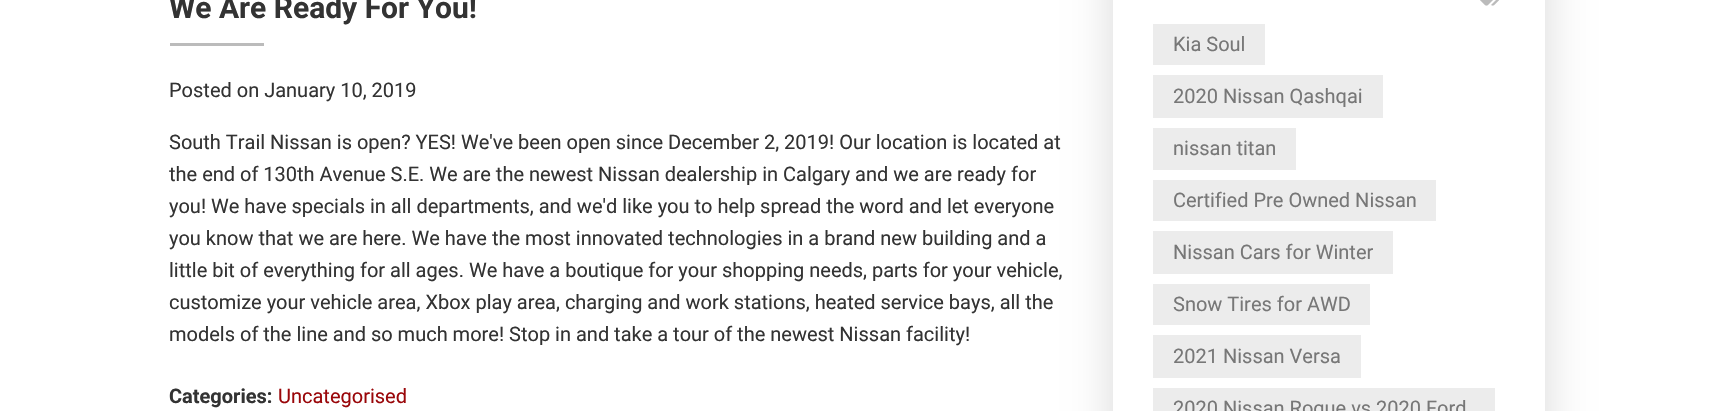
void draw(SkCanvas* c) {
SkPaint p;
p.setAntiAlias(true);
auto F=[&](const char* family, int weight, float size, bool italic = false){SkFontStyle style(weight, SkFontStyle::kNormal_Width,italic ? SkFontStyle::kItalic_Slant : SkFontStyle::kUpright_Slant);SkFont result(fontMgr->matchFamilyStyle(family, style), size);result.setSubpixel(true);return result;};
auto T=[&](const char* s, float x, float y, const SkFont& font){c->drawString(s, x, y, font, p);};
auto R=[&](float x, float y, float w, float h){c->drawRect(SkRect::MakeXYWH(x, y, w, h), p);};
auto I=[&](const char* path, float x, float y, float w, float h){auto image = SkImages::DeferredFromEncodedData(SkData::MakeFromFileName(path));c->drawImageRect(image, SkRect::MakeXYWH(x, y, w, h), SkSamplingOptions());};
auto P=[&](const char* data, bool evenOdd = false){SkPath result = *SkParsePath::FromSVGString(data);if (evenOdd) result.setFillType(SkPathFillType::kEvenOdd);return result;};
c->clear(0xffffffff);
auto f1 = F("Roboto",700,30);
p.setColor(0xff333333);
T("We Are Ready For You!",169,18,f1);
p.setColor(0xffbbbbbb);
R(170,43,94,3);
auto f2 = F("Roboto",400,20);
p.setColor(0xff333333);
T("Posted on January 10, 2019",169,97,f2);
T("South Trail Nissan is open? YES! We've been open since December 2, 2019! Our location is located at",169,149,f2);
T("the end of 130th Avenue S.E. We are the newest Nissan dealership in Calgary and we are ready for",169,181,f2);
T("you! We have specials in all departments, and we'd like you to help spread the word and let everyone",169,213,f2);
T("you know that we are here. We have the most innovated technologies in a brand new building and a",169,245,f2);
T("little bit of everything for all ages. We have a boutique for your shopping needs, parts for your vehicle,",169,277,f2);
T("customize your vehicle area, Xbox play area, charging and work stations, heated service bays, all the",169,309,f2);
T("models of the line and so much more! Stop in and take a tour of the newest Nissan facility!",169,341,f2);
auto f3 = F("Roboto",700,20);
T("Categories:",169,403,f3);
p.setColor(0xff9a070a);
T("Uncategorised",278,403,f2);
c->save();
c->clipPath(P("M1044 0h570v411h-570zm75-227h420c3.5 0 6 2.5 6 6v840c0 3.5-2.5 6-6 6h-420c-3.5 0-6-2.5-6-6v-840c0-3.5 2.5-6 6-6z",true),true);
p.setColor(0x26000000);
p.setMaskFilter(SkMaskFilter::MakeBlur(kNormal_SkBlurStyle, 22.5));
c->drawRoundRect(SkRect::MakeXYWH(1113,-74,432,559),6,6,p);
p.setMaskFilter(nullptr);
c->restore();
I("1.png",1480,0,19,6);
p.setColor(0xffececec);
R(1153,24,112,41);
p.setColor(0xff777777);
T("Kia Soul",1173,51,f2);
p.setColor(0xffececec);
R(1153,75,230,43);
p.setColor(0xff777777);
T("2020 Nissan Qashqai",1173,103,f2);
p.setColor(0xffececec);
R(1153,128,143,42);
p.setColor(0xff777777);
T("nissan titan",1173,155,f2);
p.setColor(0xffececec);
R(1153,180,283,41);
p.setColor(0xff777777);
T("Certified Pre Owned Nissan",1173,207,f2);
p.setColor(0xffececec);
R(1153,231,240,43);
p.setColor(0xff777777);
T("Nissan Cars for Winter",1173,259,f2);
p.setColor(0xffececec);
R(1153,284,217,41);
p.setColor(0xff777777);
T("Snow Tires for AWD",1173,311,f2);
p.setColor(0xffececec);
R(1153,335,208,43);
p.setColor(0xff777777);
T("2021 Nissan Versa",1173,363,f2);
p.setColor(0xffececec);
R(1153,388,342,23);
p.setColor(0xff777777);
T("2020 Nissan Rogue vs 2020 Ford",1173,415,f2);
}
